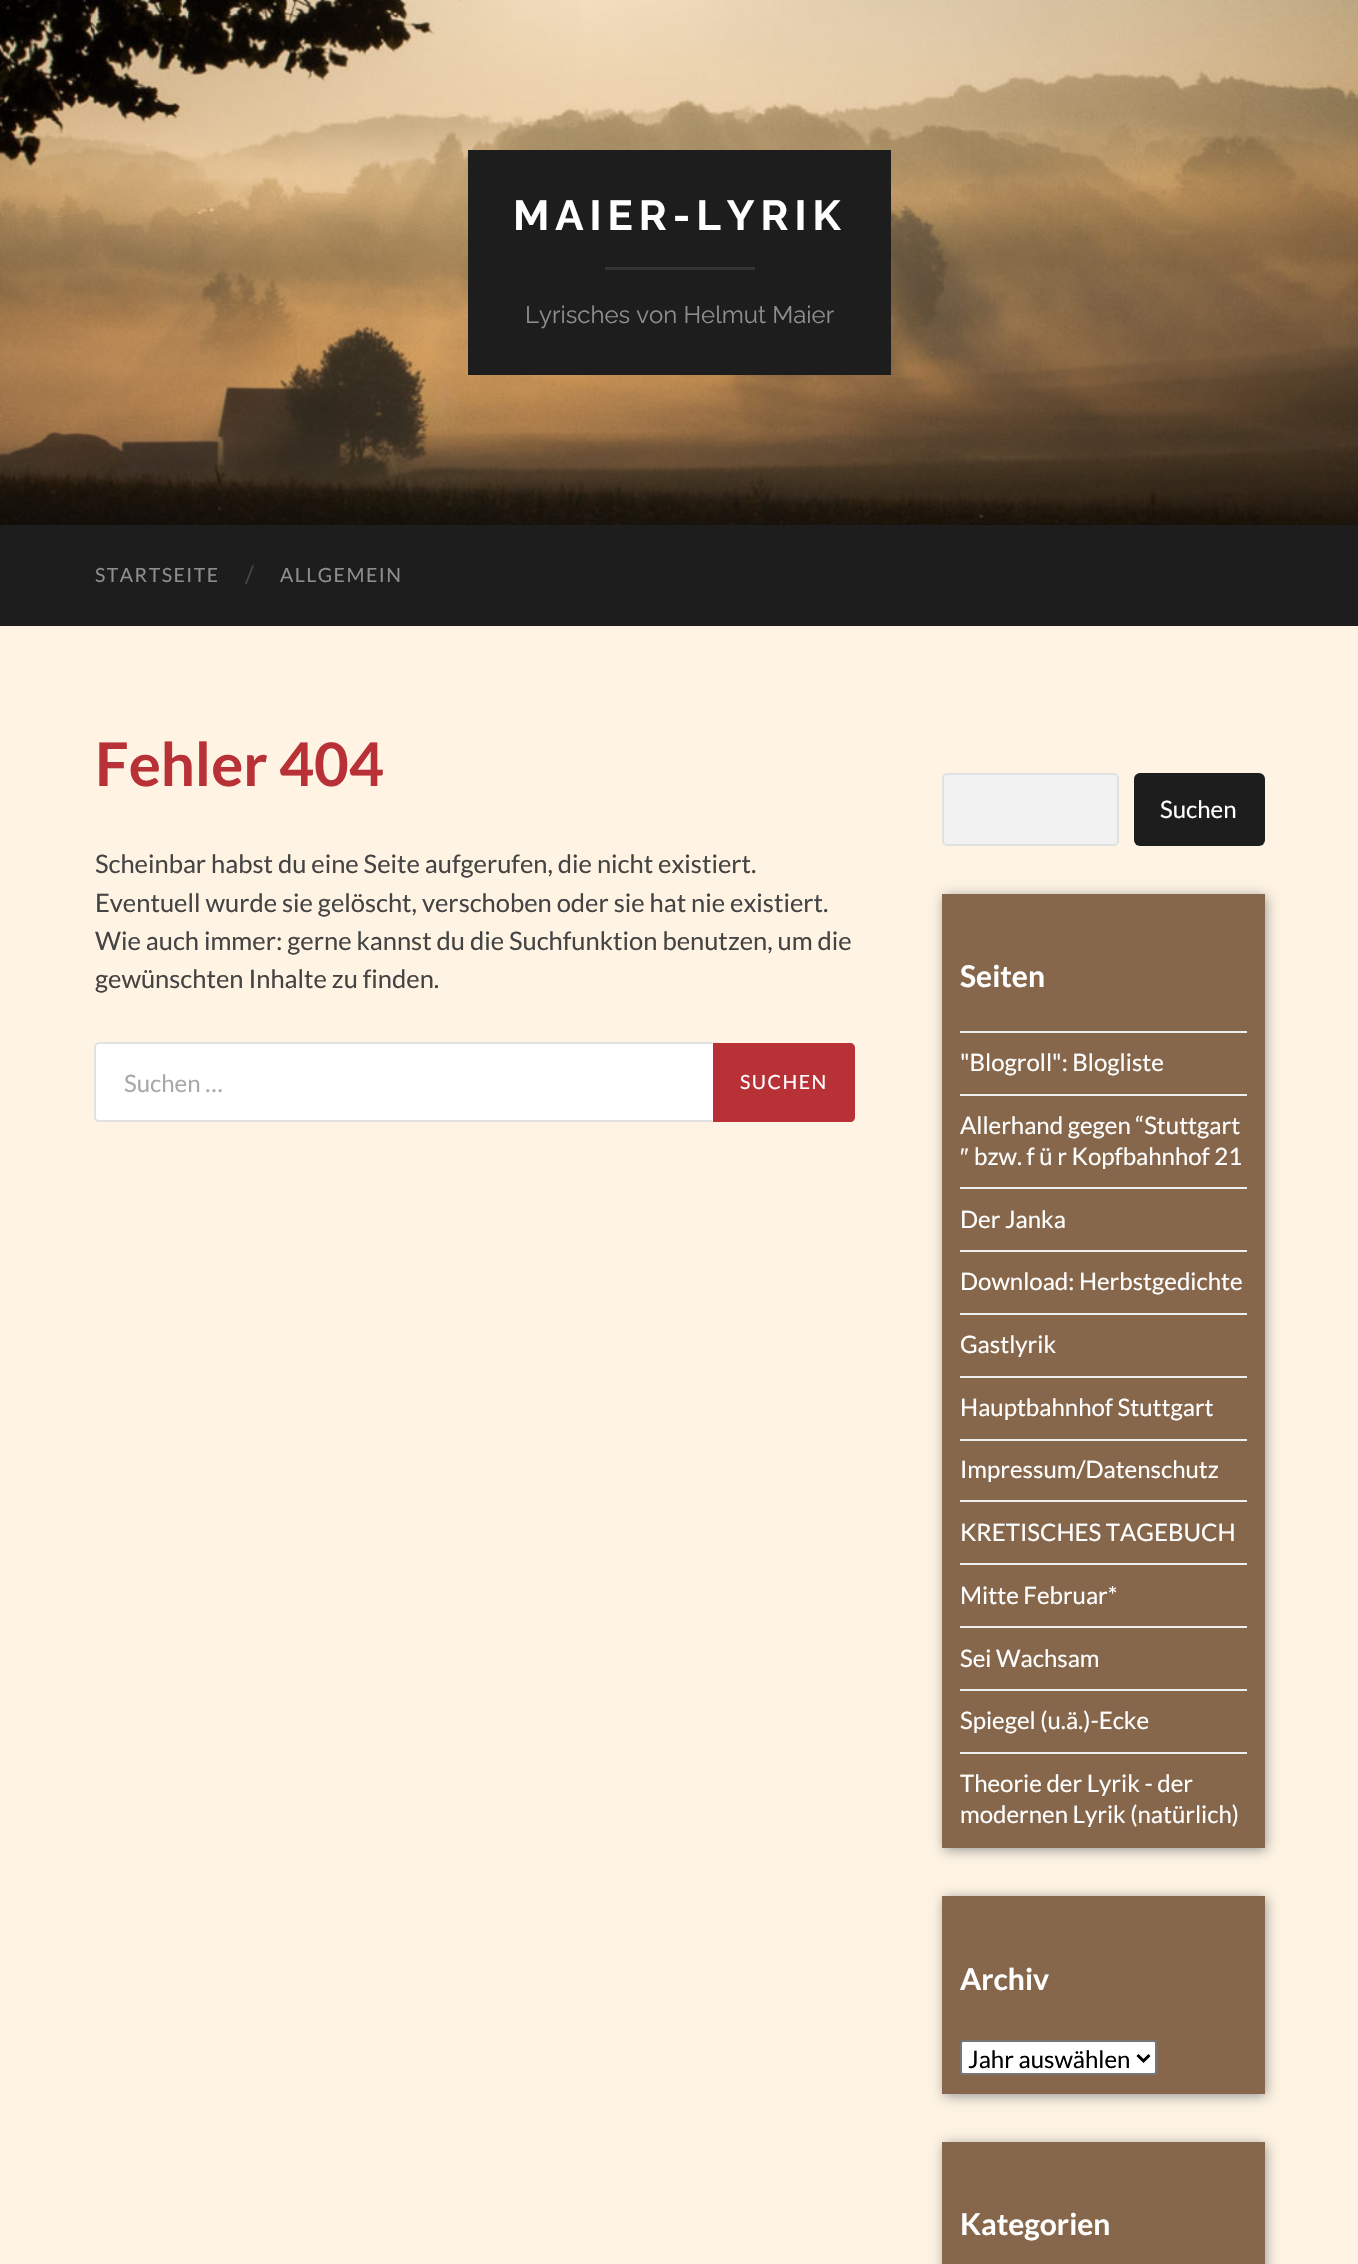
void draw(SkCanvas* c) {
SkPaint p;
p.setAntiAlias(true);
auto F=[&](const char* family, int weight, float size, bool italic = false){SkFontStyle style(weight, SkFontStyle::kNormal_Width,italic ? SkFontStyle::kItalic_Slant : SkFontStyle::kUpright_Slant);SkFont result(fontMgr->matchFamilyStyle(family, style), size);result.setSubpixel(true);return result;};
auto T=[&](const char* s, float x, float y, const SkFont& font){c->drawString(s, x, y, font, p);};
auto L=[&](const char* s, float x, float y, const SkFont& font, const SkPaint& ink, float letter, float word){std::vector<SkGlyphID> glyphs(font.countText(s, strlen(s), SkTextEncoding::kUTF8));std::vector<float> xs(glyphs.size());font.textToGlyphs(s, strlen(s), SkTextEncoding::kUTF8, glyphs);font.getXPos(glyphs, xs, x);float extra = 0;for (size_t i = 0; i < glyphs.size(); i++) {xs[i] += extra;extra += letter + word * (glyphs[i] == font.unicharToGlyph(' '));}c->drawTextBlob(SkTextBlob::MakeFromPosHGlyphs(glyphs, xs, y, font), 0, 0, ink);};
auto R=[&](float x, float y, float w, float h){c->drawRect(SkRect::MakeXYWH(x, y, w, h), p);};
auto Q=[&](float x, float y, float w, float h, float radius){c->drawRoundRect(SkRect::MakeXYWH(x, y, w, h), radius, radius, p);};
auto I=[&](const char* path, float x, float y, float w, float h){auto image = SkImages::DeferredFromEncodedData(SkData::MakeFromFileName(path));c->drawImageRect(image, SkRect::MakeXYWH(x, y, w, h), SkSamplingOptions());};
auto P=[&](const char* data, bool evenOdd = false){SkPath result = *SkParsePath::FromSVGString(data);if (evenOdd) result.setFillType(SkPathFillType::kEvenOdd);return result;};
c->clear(0xfffff4e3);
I("1.png",0,0,1358,525);
p.setColor(0xff1d1d1d);
R(468,150,423,225);
auto f1 = F("Raleway",100,42);
p.setColor(0xffffffff);
L("MAIER-LYRIK",513,230,f1,p,6,0);
p.setColor(0xff343434);
R(605,267,150,3);
auto f2 = F("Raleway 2",100,24);
p.setColor(0xff8e8e8e);
T("Lyrisches von Helmut Maier",525,323,f2);
p.setColor(0xff1d1d1d);
R(0,525,1358,101);
auto f3 = F("Lato",400,19.5);
p.setColor(0xff8e8e8e);
L("STARTSEITE",95,582,f3,p,1.5,0);
auto f4 = F("Lato",400,24);
p.setColor(0xff444444);
T("/",245,583,f4);
p.setColor(0xff8e8e8e);
L("ALLGEMEIN",280,582,f3,p,1.5,0);
auto f5 = F("Lato",700,60);
p.setColor(0xffb83137);
T("Fehler 404",95,786,f5);
auto f6 = F("Lato",400,25.5);
p.setColor(0xff444444);
T("Scheinbar habst du eine Seite aufgerufen, die nicht existiert.",95,873,f6);
T("Eventuell wurde sie gelöscht, verschoben oder sie hat nie existiert.",95,912,f6);
T("Wie auch immer: gerne kannst du die Suchfunktion benutzen, um die",95,950,f6);
T("gewünschten Inhalte zu finden.",95,988,f6);
p.setColor(0xffffffff);
c->drawPath(P("M99 1044h614v77h-614c-1.5 0-3-1.5-3-3v-71c0-1.5 1.5-3 3-3z"),p);
p.setColor(0xffe1e1e3);
c->drawPath(P("M99 1042h613v80h-613c-2 0-5-2-5-4v-71c0-2 3-5 5-5zm0 2h613v76h-613c-2 0-3-1-3-2v-71c0-2 1-3 3-3z",true),p);
p.setColor(0xffa9a9a9);
T("Suchen …",124,1092,f4);
p.setColor(0xffb83137);
c->drawPath(P("M713 1043h137c3 0 5 2 5 5v69c0 3-2 5-5 5h-137z"),p);
p.setColor(0xffffffff);
L("SUCHEN",740,1089,f3,p,1.5,0);
p.setColor(0xfff2f2f2);
c->drawRoundRect(SkRect::MakeXYWH(943,774,175,71),4,4,p);
p.setStroke(true);
p.setStrokeWidth(2);
p.setColor(0xffe1e1e3);
c->drawRoundRect(SkRect::MakeXYWH(943,774,175,71),4,4,p);
p.setStroke(false);
p.setColor(0xff1d1d1d);
Q(1134,773,131,73,6);
p.setColor(0xffffffff);
T("Suchen",1160,818,f4);
p.setColor(0xff949494);
p.setMaskFilter(SkMaskFilter::MakeBlur(kNormal_SkBlurStyle, 6));
c->drawRect(SkRect::MakeXYWH(944,896,322,954),p);
p.setMaskFilter(nullptr);
p.setColor(0xff86674b);
R(942,894,323,954);
auto f7 = F("Lato",700,30);
p.setColor(0xffffffff);
T("Seiten",960,987,f7);
p.setColor(0xffeeeeee);
R(960,1031,287,2);
p.setColor(0xffffffff);
T("\"Blogroll\": Blogliste",960,1071,f4);
p.setColor(0xffeeeeee);
R(960,1094,287,2);
p.setColor(0xffffffff);
T("Allerhand gegen “Stuttgart",960,1134,f4);
auto f8 = F("Liberation Sans",400,24);
T("″",960,1165,f8);
T("bzw. f ü r Kopfbahnhof 21",974,1165,f4);
p.setColor(0xffeeeeee);
R(960,1187,287,2);
p.setColor(0xffffffff);
T("Der Janka",960,1228,f4);
p.setColor(0xffeeeeee);
R(960,1250,287,2);
p.setColor(0xffffffff);
T("Download: Herbstgedichte",960,1290,f4);
p.setColor(0xffeeeeee);
R(960,1313,287,2);
p.setColor(0xffffffff);
T("Gastlyrik",960,1353,f4);
p.setColor(0xffeeeeee);
R(960,1376,287,2);
p.setColor(0xffffffff);
T("Hauptbahnhof Stuttgart",960,1416,f4);
p.setColor(0xffeeeeee);
R(960,1439,287,2);
p.setColor(0xffffffff);
T("Impressum/Datenschutz",960,1478,f4);
p.setColor(0xffeeeeee);
R(960,1500,287,2);
p.setColor(0xffffffff);
T("KRETISCHES TAGEBUCH",960,1541,f4);
p.setColor(0xffeeeeee);
R(960,1563,287,2);
p.setColor(0xffffffff);
T("Mitte Februar*",960,1604,f4);
p.setColor(0xffeeeeee);
R(960,1626,287,2);
p.setColor(0xffffffff);
T("Sei Wachsam",960,1667,f4);
p.setColor(0xffeeeeee);
R(960,1689,287,2);
p.setColor(0xffffffff);
T("Spiegel (u.ä.)-Ecke",960,1729,f4);
p.setColor(0xffeeeeee);
R(960,1752,287,2);
p.setColor(0xffffffff);
T("Theorie der Lyrik - der",960,1792,f4);
T("modernen Lyrik (natürlich)",960,1823,f4);
p.setColor(0xff949494);
p.setMaskFilter(SkMaskFilter::MakeBlur(kNormal_SkBlurStyle, 6));
c->drawRect(SkRect::MakeXYWH(944,1898,322,198),p);
p.setMaskFilter(nullptr);
p.setColor(0xff86674b);
R(942,1896,323,198);
p.setColor(0xffffffff);
T("Archiv",960,1990,f7);
c->drawRoundRect(SkRect::MakeXYWH(961,2041,195,33),2,2,p);
p.setStroke(true);
p.setColor(0xff767676);
c->drawRoundRect(SkRect::MakeXYWH(961,2041,195,33),2,2,p);
p.setStrokeWidth(3);
p.setColor(0xff000000);
c->drawPath(P("M1137.5 2055l6 6l6-6"),p);
p.setStroke(false);
T("Jahr auswählen",968,2068,f4);
p.setColor(0xff949494);
p.setMaskFilter(SkMaskFilter::MakeBlur(kNormal_SkBlurStyle, 6));
c->drawRect(SkRect::MakeXYWH(944,2144,322,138),p);
p.setMaskFilter(nullptr);
p.setColor(0xff86674b);
R(942,2142,323,122);
p.setColor(0xffffffff);
T("Kategorien",960,2235,f7);
}
